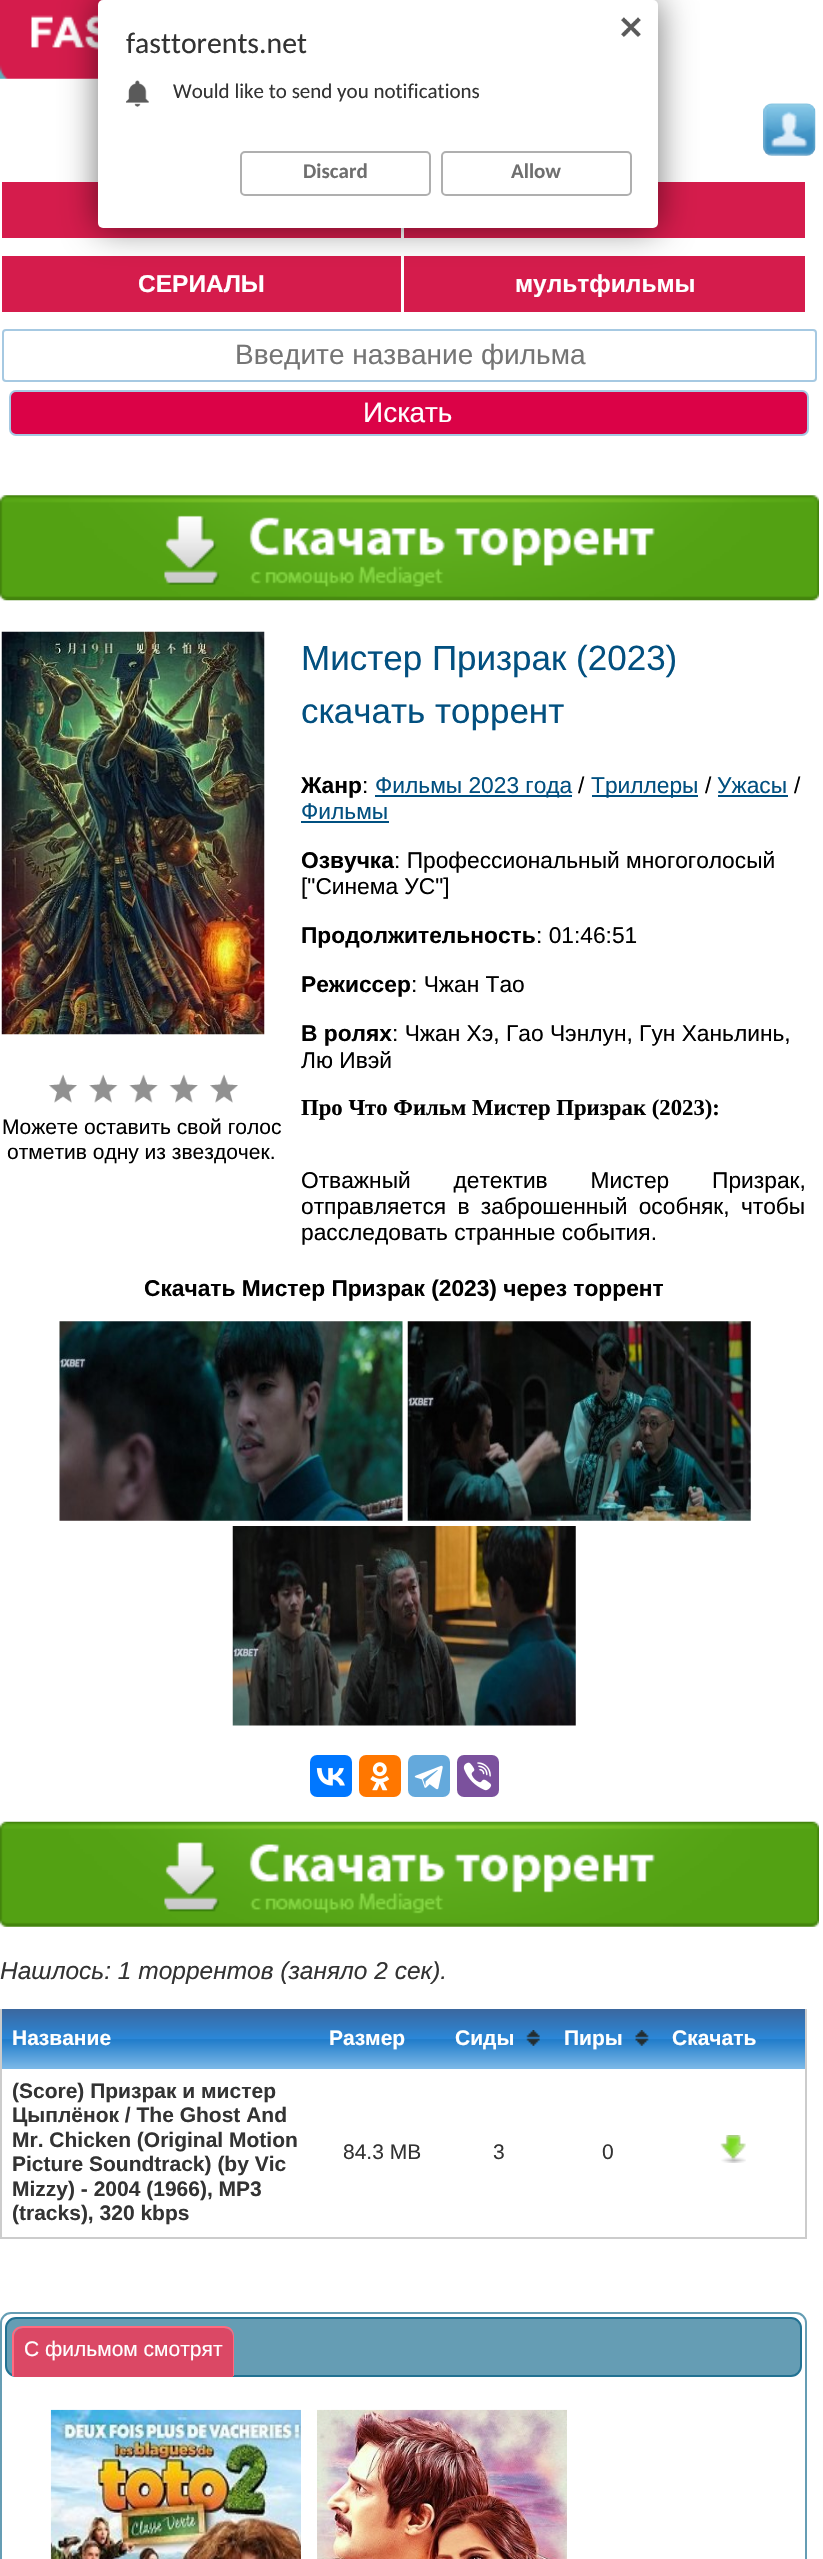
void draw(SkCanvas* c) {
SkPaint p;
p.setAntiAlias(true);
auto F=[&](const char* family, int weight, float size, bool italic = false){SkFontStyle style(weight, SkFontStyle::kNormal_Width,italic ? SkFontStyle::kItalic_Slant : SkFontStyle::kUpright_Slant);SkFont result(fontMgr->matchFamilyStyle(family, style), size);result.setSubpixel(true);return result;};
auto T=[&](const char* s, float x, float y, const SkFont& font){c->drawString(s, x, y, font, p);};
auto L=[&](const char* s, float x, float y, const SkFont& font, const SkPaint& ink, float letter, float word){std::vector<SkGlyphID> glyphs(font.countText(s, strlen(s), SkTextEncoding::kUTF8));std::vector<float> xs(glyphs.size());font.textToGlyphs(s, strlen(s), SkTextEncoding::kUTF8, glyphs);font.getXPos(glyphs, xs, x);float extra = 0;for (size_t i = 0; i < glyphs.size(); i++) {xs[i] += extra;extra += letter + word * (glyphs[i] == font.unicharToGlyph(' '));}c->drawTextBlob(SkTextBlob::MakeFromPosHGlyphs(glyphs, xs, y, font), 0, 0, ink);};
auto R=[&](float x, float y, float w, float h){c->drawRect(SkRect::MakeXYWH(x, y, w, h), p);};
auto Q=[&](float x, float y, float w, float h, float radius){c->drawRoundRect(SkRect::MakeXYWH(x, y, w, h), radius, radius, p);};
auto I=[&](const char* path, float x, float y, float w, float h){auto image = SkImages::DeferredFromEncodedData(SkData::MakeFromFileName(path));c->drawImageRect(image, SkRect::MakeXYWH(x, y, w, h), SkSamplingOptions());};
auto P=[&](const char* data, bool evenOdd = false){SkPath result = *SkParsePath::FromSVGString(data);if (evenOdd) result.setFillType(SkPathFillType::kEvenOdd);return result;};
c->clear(0xffffffff);
I("3.png",0,0,103,79);
p.setColor(0xffd51c4c);
R(2,182,399,56);
R(404,182,401,56);
R(2,256,399,56);
R(404,256,401,56);
p.setColor(0x8a000000);
p.setMaskFilter(SkMaskFilter::MakeBlur(kNormal_SkBlurStyle, 17.5));
c->drawRoundRect(SkRect::MakeXYWH(98,0,560,228),5,5,p);
p.setMaskFilter(nullptr);
p.setColor(0xffffffff);
Q(98,0,560,228,5);
I("1.png",621,17,20,20);
auto f1 = F("Carlito",400,29.75);
p.setColor(0xff333333);
T("fasttorents.net",126,53,f1);
I("2.png",126,80,23,27);
auto f2 = F("Carlito",400,21);
T("Would like to send you notifications",173,98,f2);
p.setStroke(true);
p.setStrokeWidth(2);
p.setColor(0xffafafaf);
c->drawRoundRect(SkRect::MakeXYWH(241,152,189,43),4,4,p);
auto f3 = F("Carlito",700,21);
p.setStroke(false);
p.setColor(0xff6f6f6f);
T("Discard",303,178,f3);
p.setStroke(true);
p.setColor(0xffafafaf);
c->drawRoundRect(SkRect::MakeXYWH(442,152,189,43),4,4,p);
p.setStroke(false);
p.setColor(0xff6f6f6f);
T("Allow",511,178,f3);
I("4.png",763,103,53,53);
auto f4 = F("Liberation Sans",700,24.5);
p.setColor(0xffffffff);
T("СЕРИАЛЫ",138,292,f4);
T("мультфильмы",515,292,f4);
p.setStroke(true);
p.setColor(0xffa6c9e2);
c->drawRoundRect(SkRect::MakeXYWH(3,330,813,51),3,3,p);
auto f5 = F("Liberation Sans",400,28);
p.setStroke(false);
p.setColor(0xff757575);
T("Введите название фильма",235,364,f5);
p.setColor(0xffdb0247);
c->drawRoundRect(SkRect::MakeXYWH(10,391,798,44),6,6,p);
p.setStroke(true);
p.setColor(0xffa6c9e2);
c->drawRoundRect(SkRect::MakeXYWH(10,391,798,44),6,6,p);
p.setStroke(false);
p.setColor(0xffffffff);
T("Искать",363,422,f5);
I("5.png",0,495,819,106);
I("6.png",1,631,264,404);
I("7.png",49,1074,189,29);
auto f6 = F("Liberation Sans",400,21);
p.setColor(0xff000000);
T("Можете оставить свой голос",2,1134,f6);
T("отметив одну из звездочек.",7,1159,f6);
auto f7 = F("Liberation Sans",400,35);
p.setColor(0xff025080);
T("Мистер Призрак (2023)",301,670,f7);
T("скачать торрент",301,723,f7);
auto f8 = F("Liberation Sans",700,22.75);
p.setColor(0xff000000);
T("Жанр",301,793,f8);
auto f9 = F("Liberation Sans",400,22.75);
T(":",362,793,f9);
p.setColor(0xff005081);
R(375,795,197,2);
p.setColor(0xff025080);
T("Фильмы 2023 года",375,793,f9);
p.setColor(0xff000000);
T("/",578,793,f9);
p.setColor(0xff005081);
R(592,795,106,2);
p.setColor(0xff025080);
T("Триллеры",591,793,f9);
p.setColor(0xff000000);
T("/",705,793,f9);
p.setColor(0xff025080);
T("Ужасы",717,793,f9);
p.setColor(0xff005081);
R(718,795,70,2);
p.setColor(0xff000000);
T("/",794,793,f9);
p.setColor(0xff025080);
T("Фильмы",301,819,f9);
p.setColor(0xff005081);
R(301,821,88,2);
p.setColor(0xff000000);
T("Озвучка",301,868,f8);
T(": Профессиональный многоголосый",394,868,f9);
T("[\"Синема УС\"]",301,894,f9);
T("Продолжительность",301,943,f8);
T(": 01:46:51",536,943,f9);
T("Режиссер",301,992,f8);
T(": Чжан Тао",411,992,f9);
T("В ролях",301,1041,f8);
T(": Чжан Хэ, Гао Чэнлун, Гун Ханьлинь,",392,1041,f9);
T("Лю Ивэй",301,1068,f9);
auto f10 = F("Liberation Serif",700,22.75);
T("Про Что Фильм Мистер Призрак (2023):",301,1115,f10);
L("Отважный детектив Мистер Призрак,",301,1188,f9,p,0,36.5);
L("отправляется в заброшенный особняк, чтобы",301,1214,f9,p,0,5);
T("расследовать странные события.",301,1240,f9);
T("Скачать Мистер Призрак (2023) через торрент",144,1296,f8);
I("8.png",59,1321,344,200);
I("9.png",407,1321,344,200);
I("10.png",232,1526,344,200);
p.setColor(0xff0077ff);
Q(310,1755,42,42,7);
I("11.png",316,1768,29,18);
p.setColor(0xffff7700);
Q(359,1755,42,42,7);
I("12.png",370,1762,20,29);
p.setColor(0xff64a9dc);
Q(408,1755,42,42,7);
I("13.png",414,1765,29,25);
p.setColor(0xff7b519d);
Q(457,1755,42,42,7);
I("14.png",463,1762,29,29);
I("15.png",0,1821,819,106);
auto f11 = F("Liberation Sans",400,24.5,true);
p.setColor(0xff333333);
T("Нашлось: 1 торрентов (заняло 2 сек).",0,1979,f11);
p.setColor(0xffcccccc);
R(805,2009,2,229);
R(0,2009,2,229);
{
const SkColor colors[] = {0xff3b679e,0xff2b88d9,0xff207cca,0xff7db9e8};
const float stops[] = {0,.5,.51,1};
const SkPoint ends[] = {{404,2009}, {404,2069}};
p.setShader(SkGradientShader::MakeLinear(ends, colors, stops, 4, SkTileMode::kClamp));
p.setAlpha(255);
}
R(2,2009,803,60);
auto f12 = F("Liberation Sans",700,21);
p.setShader(nullptr);
p.setColor(0xffffffff);
T("Название",12,2045,f12);
T("Размер",329,2045,f12);
T("Сиды",455,2045,f12);
I("16.png",526,2030,14,16);
T("Пиры",564,2045,f12);
I("17.png",635,2030,14,16);
T("Скачать",672,2045,f12);
p.setColor(0xff333333);
T("(Score) Призрак и мистер",12,2098,f12);
T("Цыплёнок / The Ghost And",12,2122,f12);
T("Mr. Chicken (Original Motion",12,2147,f12);
T("Picture Soundtrack) (by Vic",12,2171,f12);
T("Mizzy) - 2004 (1966), MP3",12,2196,f12);
T("(tracks), 320 kbps",12,2220,f12);
p.setColor(0xffcccccc);
R(0,2237,807,2);
I("18.png",720,2135,26,28);
p.setColor(0xff333333);
T("84.3 MB",343,2159,f6);
T("3",493,2159,f6);
T("0",602,2159,f6);
p.setStroke(true);
p.setColor(0xff659db4);
c->drawRoundRect(SkRect::MakeXYWH(1,2313,805,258),10,10,p);
p.setStroke(false);
c->drawRoundRect(SkRect::MakeXYWH(6,2318,795,58),10,10,p);
p.setStroke(true);
p.setColor(0xff227293);
c->drawRoundRect(SkRect::MakeXYWH(6,2318,795,58),10,10,p);
p.setStroke(false);
p.setColor(0xffdb4865);
c->drawPath(P("M23 2328h201c5 0 9 4 9 9v40h-219v-40c0-5 4-9 9-9z"),p);
p.setColor(0xffff6b7f);
c->drawPath(P("M23 2326h201c6 0 10 4 10 10v40h-222v-40c0-6 5-10 11-10zm0 2h201c5 0 9 3 9 8v40h-219v-40c0-5 4-8 9-8z",true),p);
p.setColor(0xffffffff);
T("С фильмом смотрят",24,2356,f6);
I("19.png",50,2409,251,150);
I("20.png",317,2409,250,150);
}
